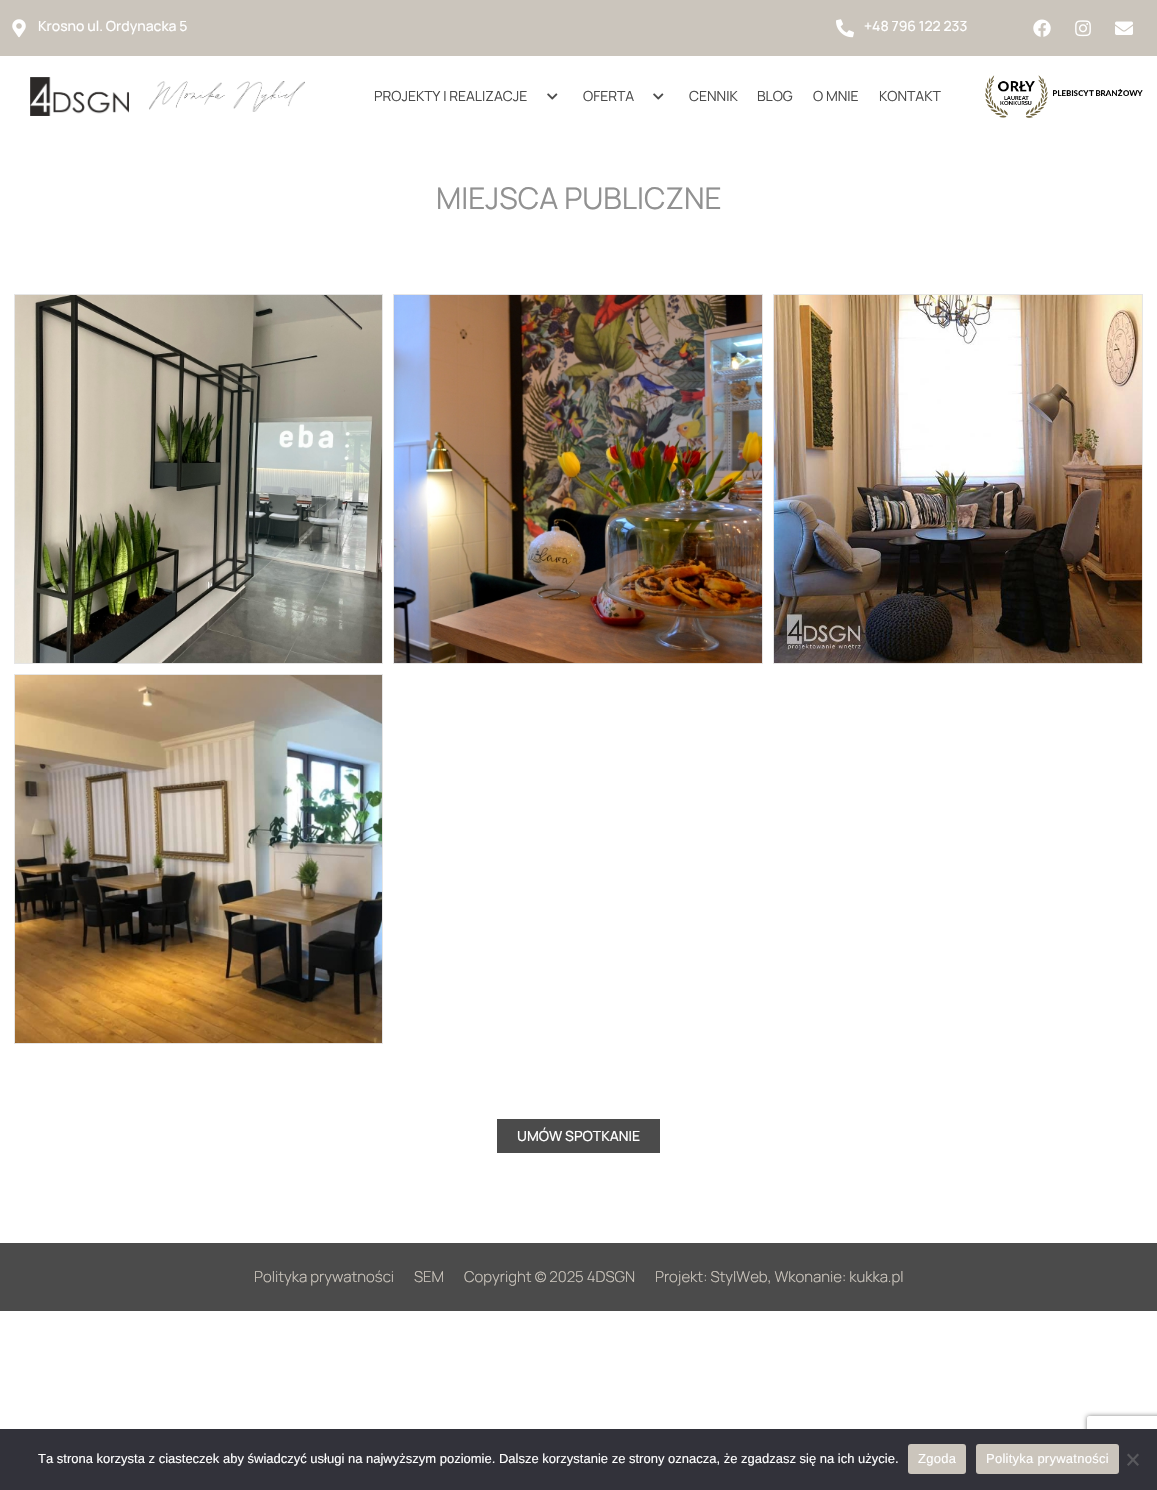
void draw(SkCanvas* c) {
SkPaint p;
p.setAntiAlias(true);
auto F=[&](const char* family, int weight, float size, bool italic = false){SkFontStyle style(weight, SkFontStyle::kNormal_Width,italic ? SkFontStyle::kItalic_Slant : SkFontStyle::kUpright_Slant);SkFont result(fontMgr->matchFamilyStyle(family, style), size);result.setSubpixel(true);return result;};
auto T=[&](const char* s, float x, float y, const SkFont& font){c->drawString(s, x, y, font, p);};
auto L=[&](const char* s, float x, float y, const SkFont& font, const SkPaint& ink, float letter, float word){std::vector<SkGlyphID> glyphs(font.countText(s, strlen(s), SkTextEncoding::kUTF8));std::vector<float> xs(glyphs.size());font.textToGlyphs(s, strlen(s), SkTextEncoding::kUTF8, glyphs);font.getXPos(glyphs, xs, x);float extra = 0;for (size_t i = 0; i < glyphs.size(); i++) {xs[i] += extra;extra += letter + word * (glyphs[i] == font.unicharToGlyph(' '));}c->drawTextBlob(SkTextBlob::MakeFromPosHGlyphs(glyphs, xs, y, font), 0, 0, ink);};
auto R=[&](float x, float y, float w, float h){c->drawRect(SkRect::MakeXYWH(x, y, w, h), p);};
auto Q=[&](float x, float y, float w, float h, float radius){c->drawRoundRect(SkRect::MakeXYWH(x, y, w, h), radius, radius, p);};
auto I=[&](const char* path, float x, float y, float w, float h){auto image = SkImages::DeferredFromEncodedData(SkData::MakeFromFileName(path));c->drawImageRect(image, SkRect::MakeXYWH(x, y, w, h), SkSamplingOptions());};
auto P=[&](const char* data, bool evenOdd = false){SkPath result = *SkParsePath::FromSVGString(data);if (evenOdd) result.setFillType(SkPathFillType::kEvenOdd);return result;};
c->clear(0xffffffff);
p.setColor(0xffcbc5bc);
R(0,0,1157,56);
I("1.png",12,19,14,19);
auto f1 = F("Manrope",500,14);
p.setColor(0xffffffff);
T("Krosno ul. Ordynacka 5",38,31,f1);
I("2.png",836,19,18,19);
T("+48 796 122 233",864,31,f1);
I("3.png",1033,19,18,18);
I("4.png",1075,20,16,17);
I("5.png",1115,21,18,14);
I("6.png",30,77,99,39);
I("7.png",149,81,156,31);
auto f2 = F("Manrope",400,14);
p.setColor(0xff4b4b4b);
T("PROJEKTY I REALIZACJE",374,101,f2);
I("8.png",547,93,11,7);
T("OFERTA",583,101,f2);
I("8.png",653,93,11,7);
T("CENNIK",689,101,f2);
T("BLOG",757,101,f2);
T("O MNIE",813,101,f2);
T("KONTAKT",879,101,f2);
I("9.png",985,75,158,43);
auto f3 = F("Manrope",400,30);
p.setColor(0xff919191);
T("MIEJSCA PUBLICZNE",436,209,f3);
p.setStroke(true);
p.setStrokeWidth(1);
p.setColor(0xffe6e6e6);
c->drawRect(SkRect::MakeXYWH(14.5,294.5,368,369),p);
I("10.png",15,295,367,368);
c->drawRect(SkRect::MakeXYWH(393.5,294.5,369,369),p);
I("11.png",394,295,368,368);
c->drawRect(SkRect::MakeXYWH(773.5,294.5,369,369),p);
I("12.png",774,295,368,368);
c->drawRect(SkRect::MakeXYWH(14.5,674.5,368,369),p);
I("13.png",15,675,367,368);
p.setStroke(false);
p.setColor(0xff4b4b4b);
R(497,1119,163,34);
p.setColor(0xffffffff);
T("UMÓW SPOTKANIE",517,1141,f1);
p.setColor(0xff4b4b4b);
R(0,1243,1157,68);
auto f4 = F("Manrope",300,15);
p.setColor(0xffcbc5bc);
T("Polityka prywatności",254,1282,f4);
T("SEM",414,1282,f4);
T("Copyright © 2025 4DSGN",464,1282,f4);
T("Projekt: StylWeb, Wkonanie: kukka.pl",655,1282,f4);
c->save();
c->clipPath(P("M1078 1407h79v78h-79zm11 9h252c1 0 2 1 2 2v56c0 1-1 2-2 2h-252c-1 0-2-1-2-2v-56c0-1 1-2 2-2z",true),true);
p.setColor(0xff808080);
p.setMaskFilter(SkMaskFilter::MakeBlur(kNormal_SkBlurStyle, 2.5));
c->drawRoundRect(SkRect::MakeXYWH(1087,1416,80,60),2,2,p);
p.setMaskFilter(nullptr);
c->restore();
p.setColor(0xff32323a);
R(0,1429,1157,61);
auto f5 = F("Liberation Sans",400,13);
p.setColor(0xffffffff);
T("Ta strona korzysta z ciasteczek aby świadczyć usługi na najwyższym poziomie. Dalsze korzystanie ze strony oznacza, że zgadzasz się na ich użycie.",38,1463,f5);
p.setColor(0xffcbc5bc);
Q(908,1444,58,30,3);
p.setColor(0xffffffff);
L("Zgoda",918,1463,f5,p,.25,0);
p.setColor(0xffcbc5bc);
Q(976,1444,143,30,3);
p.setColor(0xffffffff);
L("Polityka prywatności",986,1463,f5,p,.25,0);
p.setColor(0xff59595d);
c->drawPath(P("M1137.5 1453.5l1.5 1.5l-10.5 11l-1.5-1.5z"),p);
c->drawPath(P("M1127 1455l1.5-1.5l10.5 11l-1.5 1.5z"),p);
}
